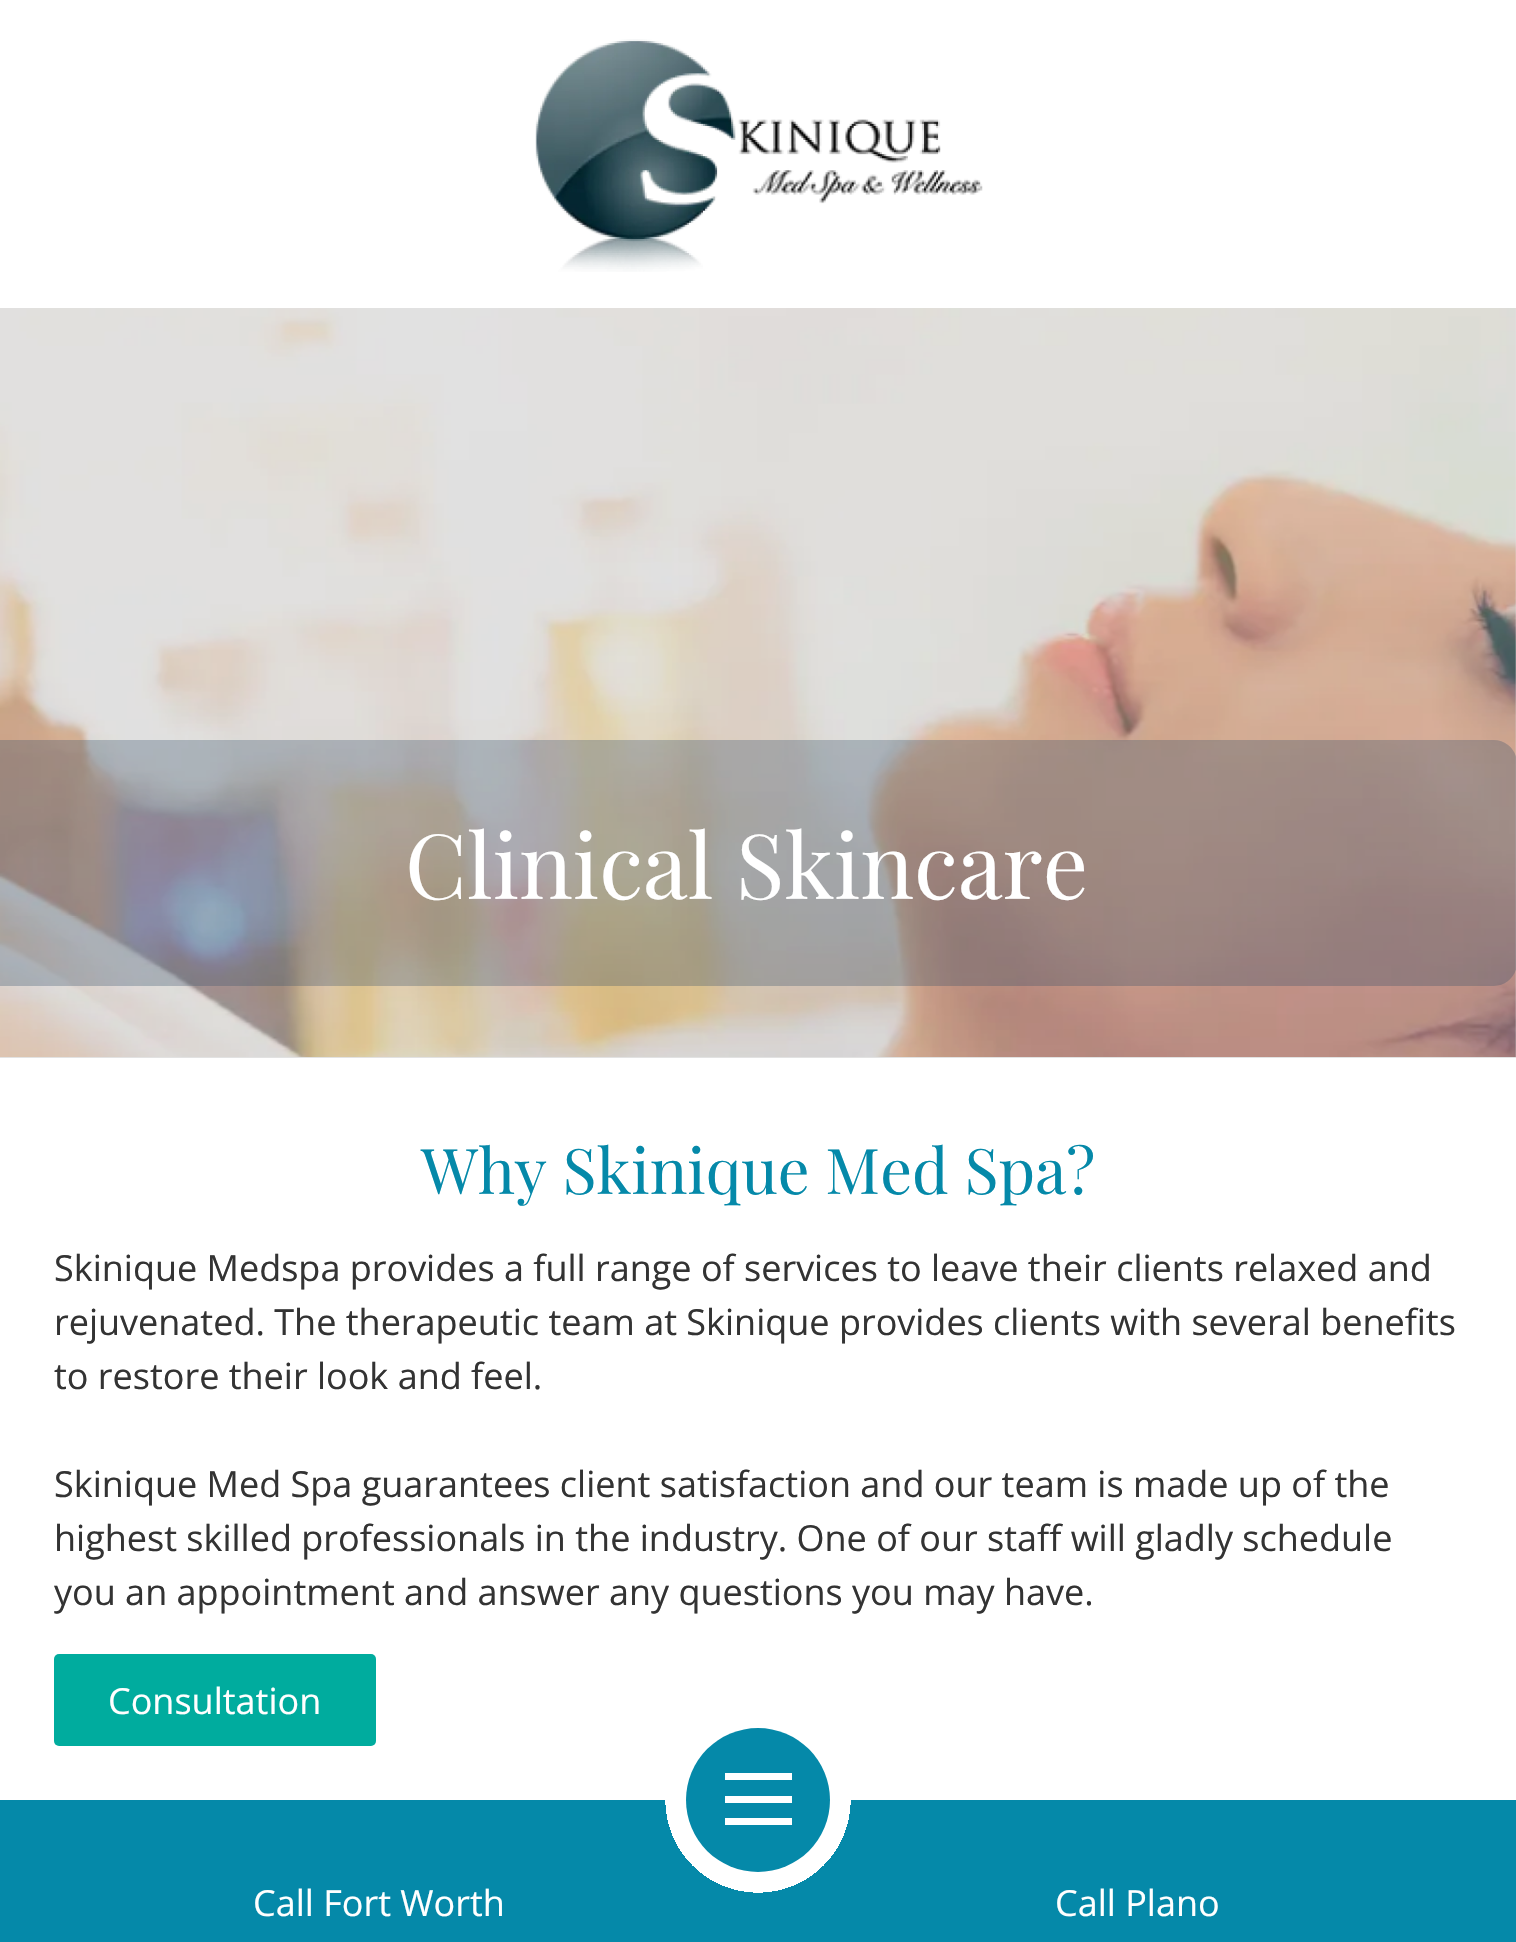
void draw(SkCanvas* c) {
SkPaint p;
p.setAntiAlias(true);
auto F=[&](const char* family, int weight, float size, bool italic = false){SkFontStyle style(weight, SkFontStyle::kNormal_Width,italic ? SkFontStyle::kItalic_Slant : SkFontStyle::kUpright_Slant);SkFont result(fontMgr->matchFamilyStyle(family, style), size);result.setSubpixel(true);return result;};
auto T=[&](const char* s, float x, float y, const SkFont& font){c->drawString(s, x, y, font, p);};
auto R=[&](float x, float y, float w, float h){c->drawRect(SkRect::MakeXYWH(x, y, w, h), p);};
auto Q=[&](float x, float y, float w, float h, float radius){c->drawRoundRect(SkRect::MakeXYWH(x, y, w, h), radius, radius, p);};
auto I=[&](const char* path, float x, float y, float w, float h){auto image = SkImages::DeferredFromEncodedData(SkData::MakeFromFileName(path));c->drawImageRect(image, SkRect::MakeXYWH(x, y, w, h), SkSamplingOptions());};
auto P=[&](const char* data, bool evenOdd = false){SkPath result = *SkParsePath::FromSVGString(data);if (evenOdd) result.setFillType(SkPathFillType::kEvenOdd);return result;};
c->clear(0xffffffff);
p.setColor(0xffe2e2e2);
R(0,308,1516,750);
I("1.png",535,39,448,233);
I("2.png",0,308,1516,749);
p.setColor(0x4d324d66);
c->drawPath(P("M0 740h1494c12.5 0 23 10.5 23 23v200c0 12.5-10.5 23-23 23h-1494z"),p);
auto f1 = F("Playfair Display",400,90);
p.setColor(0xffffffff);
T("Clinical Skincare",405,899,f1);
auto f2 = F("Playfair Display",400,63);
p.setColor(0xff0589a9);
T("Why Skinique Med Spa?",421,1194,f2);
auto f3 = F("Open Sans",400,36);
p.setColor(0xff333333);
T("Skinique Medspa provides a full range of services to leave their clients relaxed and",54,1281,f3);
T("rejuvenated. The therapeutic team at Skinique provides clients with several benefits",54,1335,f3);
T("to restore their look and feel.",54,1389,f3);
T("Skinique Med Spa guarantees client satisfaction and our team is made up of the",54,1497,f3);
T("highest skilled professionals in the industry. One of our staff will gladly schedule",54,1551,f3);
T("you an appointment and answer any questions you may have.",54,1605,f3);
p.setColor(0xff00ac9e);
Q(54,1654,322,92,5);
p.setColor(0xffffffff);
T("Consultation",108,1714,f3);
{
const SkColor colors[] = {0xffffffff,0xff0589a9};
const float stops[] = {.12,.12};
p.setShader(SkGradientShader::MakeRadial({758,1800}, 772, colors, stops, 2, SkTileMode::kClamp));
p.setAlpha(255);
}
R(0,1800,1516,142);
p.setShader(nullptr);
p.setColor(0xff0589a9);
c->drawCircle(758,1800,72,p);
p.setColor(0xffffffff);
R(725,1796,67,7);
R(725,1773,67,7);
R(725,1818,67,7);
T("Call Fort Worth",253,1916,f3);
T("Call Plano",1055,1916,f3);
}
